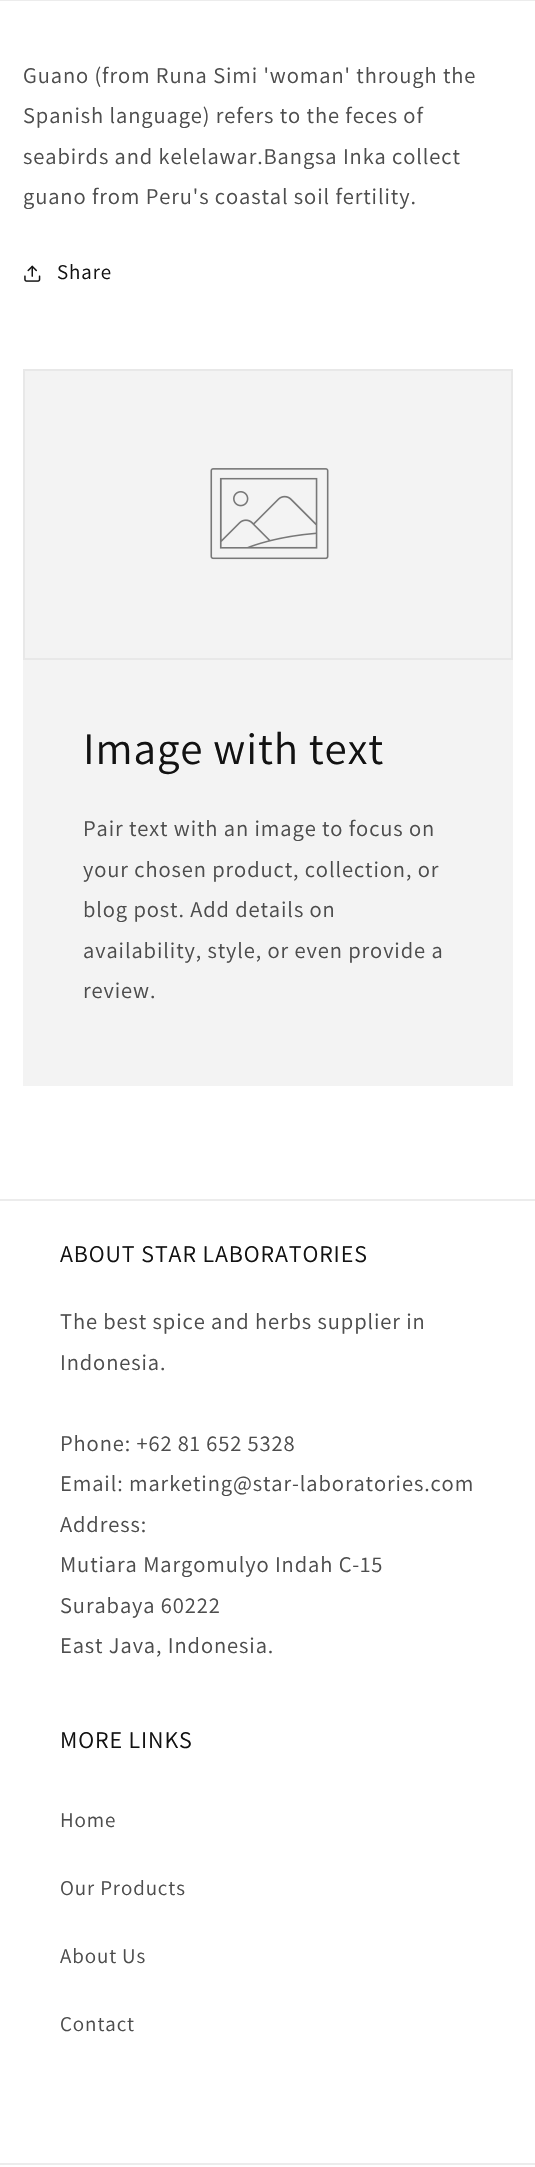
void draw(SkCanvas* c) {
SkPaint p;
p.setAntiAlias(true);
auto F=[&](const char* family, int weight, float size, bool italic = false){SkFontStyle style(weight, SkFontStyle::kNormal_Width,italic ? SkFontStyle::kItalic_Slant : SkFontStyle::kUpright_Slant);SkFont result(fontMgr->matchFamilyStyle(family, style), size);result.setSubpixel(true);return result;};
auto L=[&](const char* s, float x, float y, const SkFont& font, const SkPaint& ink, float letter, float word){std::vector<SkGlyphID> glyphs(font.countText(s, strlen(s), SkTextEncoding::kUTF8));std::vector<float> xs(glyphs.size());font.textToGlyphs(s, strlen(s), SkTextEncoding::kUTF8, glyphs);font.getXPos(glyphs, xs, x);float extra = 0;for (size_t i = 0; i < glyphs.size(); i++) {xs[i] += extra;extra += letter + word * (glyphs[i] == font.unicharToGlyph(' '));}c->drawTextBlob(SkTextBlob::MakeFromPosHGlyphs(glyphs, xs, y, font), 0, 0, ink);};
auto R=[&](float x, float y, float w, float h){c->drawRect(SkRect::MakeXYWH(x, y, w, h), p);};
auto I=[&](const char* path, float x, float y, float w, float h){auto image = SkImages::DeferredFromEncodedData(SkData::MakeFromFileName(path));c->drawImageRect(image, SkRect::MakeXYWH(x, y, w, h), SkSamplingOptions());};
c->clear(0xffffffff);
p.setColor(0x14121212);
R(0,0,535,1);
auto f1 = F("Assistant",400,22.5);
p.setColor(0xff4d4d4d);
L("Guano (from Runa Simi 'woman' through the",23,83,f1,p,.9,0);
L("Spanish language) refers to the feces of",23,123,f1,p,.9,0);
L("seabirds and kelelawar.Bangsa Inka collect",23,164,f1,p,.9,0);
L("guano from Peru's coastal soil fertility.",23,204,f1,p,.9,0);
I("1.png",24,265,17,17);
auto f2 = F("Assistant",400,21);
p.setColor(0xff121212);
L("Share",57,279,f2,p,.9,0);
p.setColor(0xfff3f3f3);
c->drawRect(SkRect::MakeXYWH(24,370,488,289),p);
p.setStroke(true);
p.setStrokeWidth(2);
p.setColor(0xffe8e8e8);
c->drawRect(SkRect::MakeXYWH(24,370,488,289),p);
I("2.png",210,468,119,92);
p.setStroke(false);
p.setColor(0xfff3f3f3);
R(23,660,490,426);
auto f3 = F("Assistant",400,45);
p.setColor(0xff121212);
L("Image with text",83,764,f3,p,.9,0);
p.setColor(0xff4d4d4d);
L("Pair text with an image to focus on",83,836,f1,p,.9,0);
L("your chosen product, collection, or",83,877,f1,p,.9,0);
L("blog post. Add details on",83,917,f1,p,.9,0);
L("availability, style, or even provide a",83,958,f1,p,.9,0);
L("review.",83,998,f1,p,.9,0);
p.setColor(0xffececec);
R(0,1199,535,2);
auto f4 = F("Assistant",400,24);
p.setColor(0xff121212);
L("ABOUT STAR LABORATORIES",60,1262,f4,p,.9,0);
p.setColor(0xff4d4d4d);
L("The best spice and herbs supplier in",60,1329,f1,p,.9,0);
L("Indonesia.",60,1370,f1,p,.9,0);
L("Phone: +62 81 652 5328",60,1451,f1,p,.9,0);
L("Email: marketing@star-laboratories.com",60,1491,f1,p,.9,0);
L("Address:",60,1532,f1,p,.9,0);
L("Mutiara Margomulyo Indah C-15",60,1572,f1,p,.9,0);
L("Surabaya 60222",60,1613,f1,p,.9,0);
L("East Java, Indonesia.",60,1653,f1,p,.9,0);
p.setColor(0xff121212);
L("MORE LINKS",60,1748,f4,p,.9,0);
p.setColor(0xff4d4d4d);
L("Home",60,1827,f2,p,.9,0);
L("Our Products",60,1895,f2,p,.9,0);
L("About Us",60,1963,f2,p,.9,0);
L("Contact",60,2031,f2,p,.9,0);
p.setColor(0xffececec);
R(0,2163,535,2);
}
